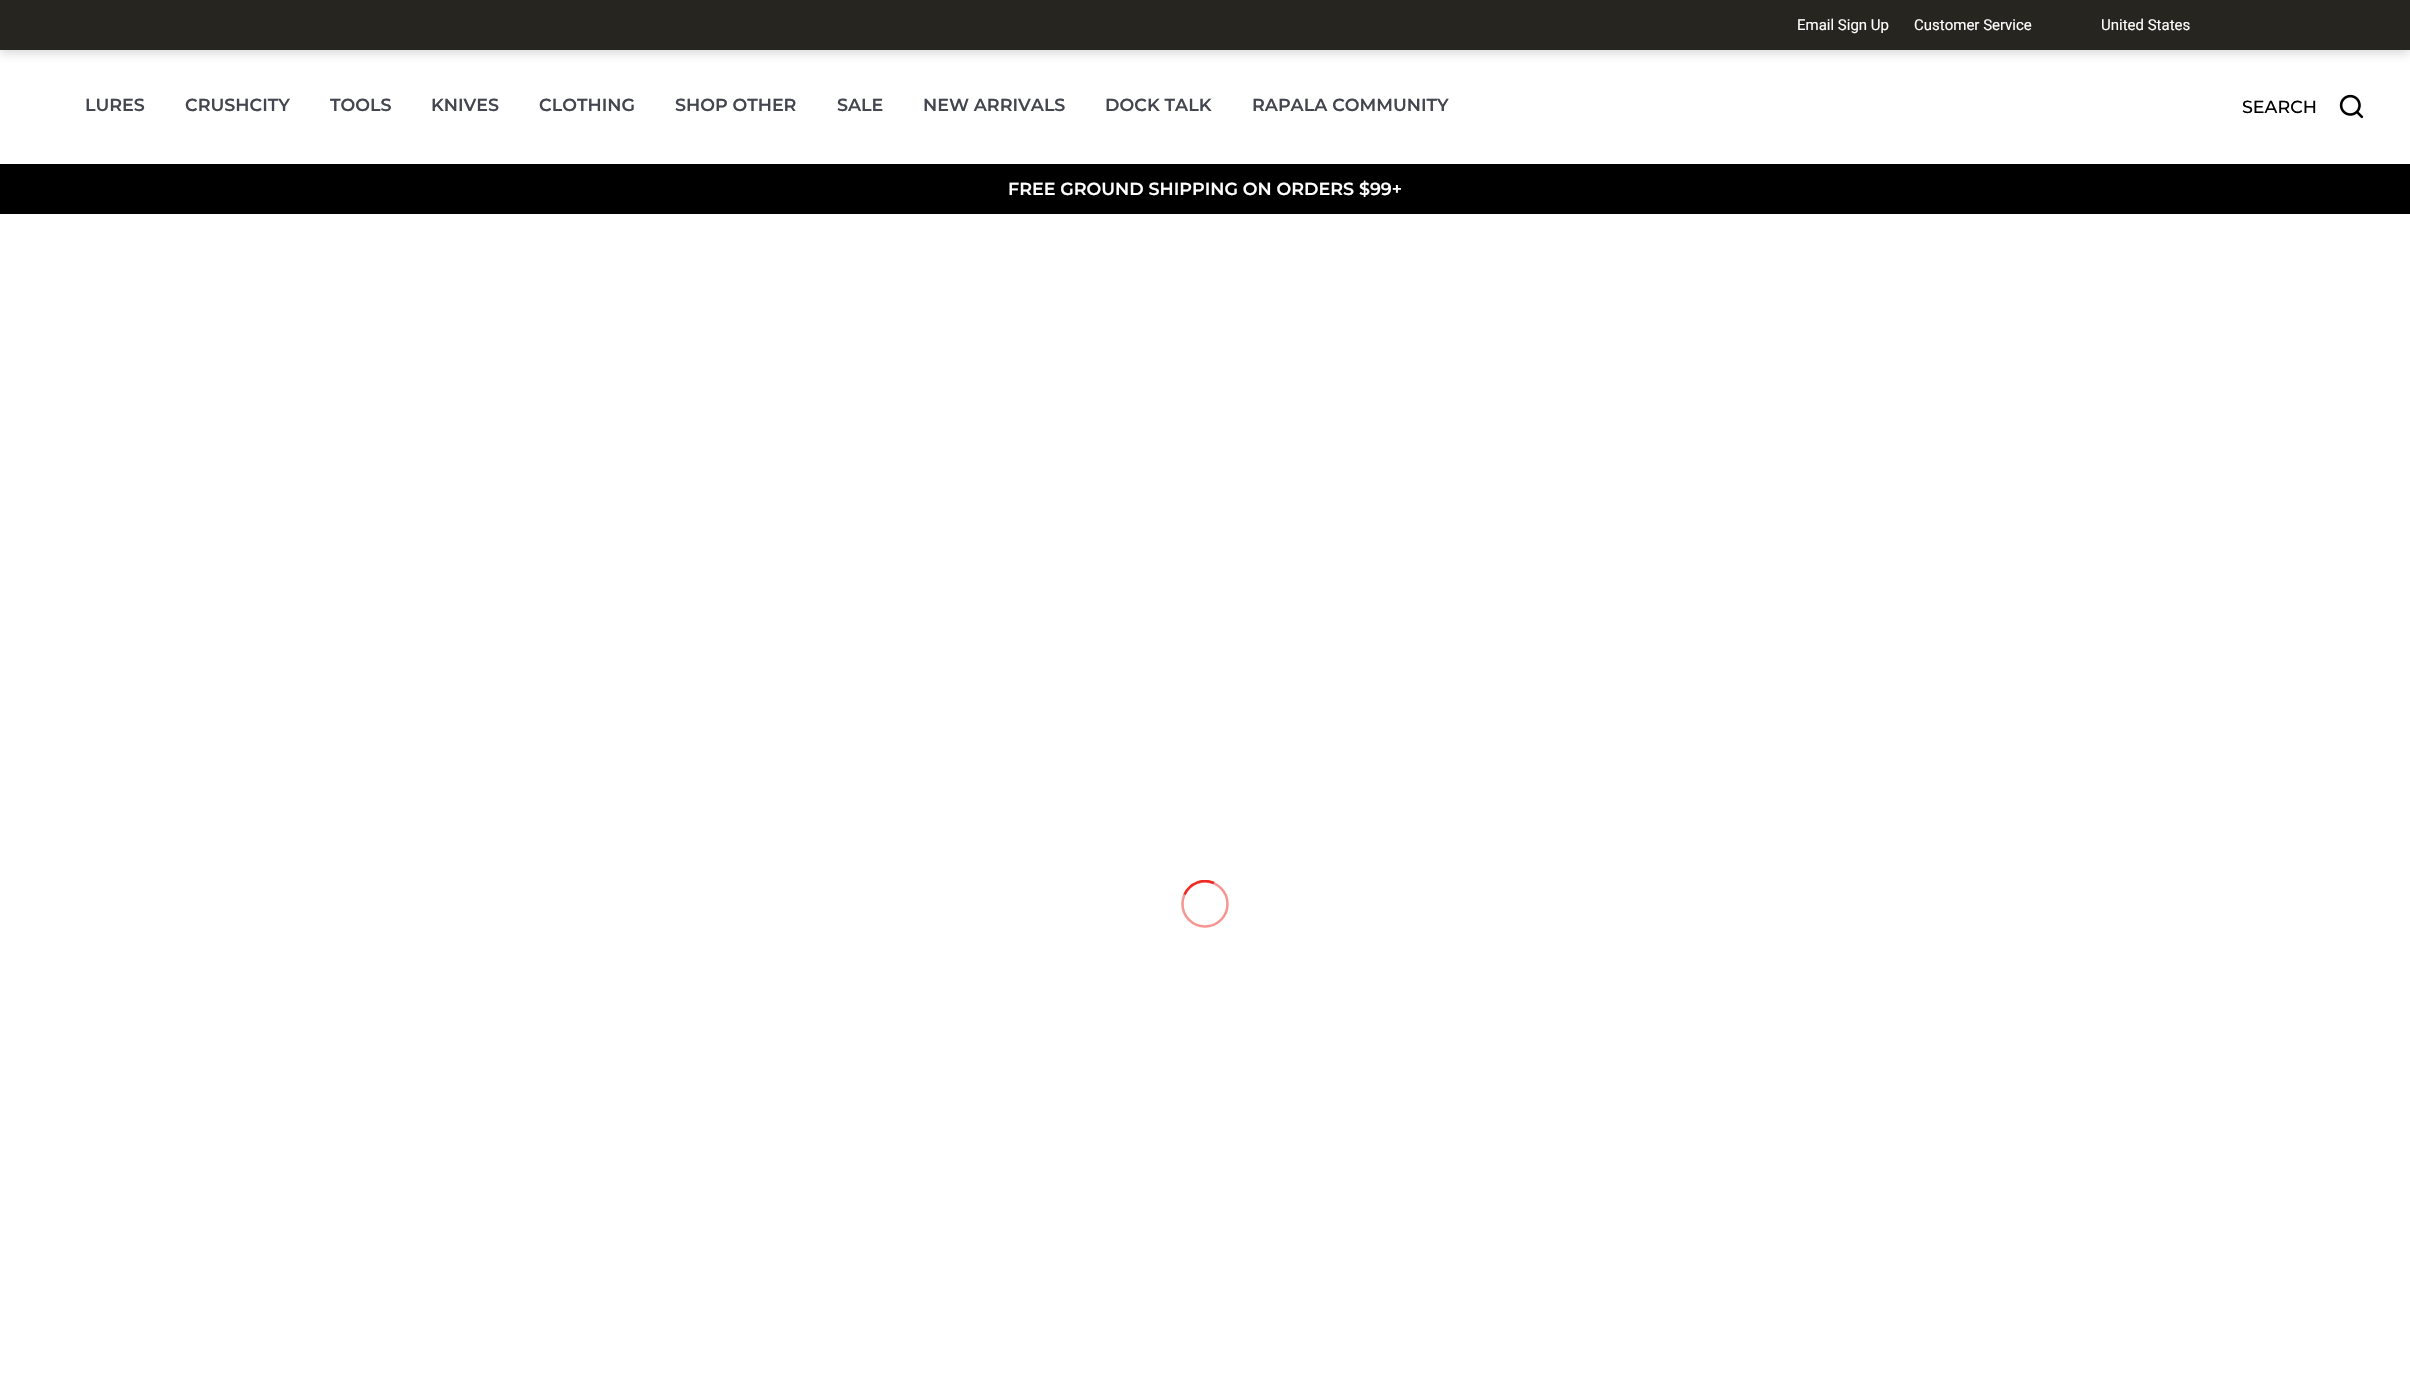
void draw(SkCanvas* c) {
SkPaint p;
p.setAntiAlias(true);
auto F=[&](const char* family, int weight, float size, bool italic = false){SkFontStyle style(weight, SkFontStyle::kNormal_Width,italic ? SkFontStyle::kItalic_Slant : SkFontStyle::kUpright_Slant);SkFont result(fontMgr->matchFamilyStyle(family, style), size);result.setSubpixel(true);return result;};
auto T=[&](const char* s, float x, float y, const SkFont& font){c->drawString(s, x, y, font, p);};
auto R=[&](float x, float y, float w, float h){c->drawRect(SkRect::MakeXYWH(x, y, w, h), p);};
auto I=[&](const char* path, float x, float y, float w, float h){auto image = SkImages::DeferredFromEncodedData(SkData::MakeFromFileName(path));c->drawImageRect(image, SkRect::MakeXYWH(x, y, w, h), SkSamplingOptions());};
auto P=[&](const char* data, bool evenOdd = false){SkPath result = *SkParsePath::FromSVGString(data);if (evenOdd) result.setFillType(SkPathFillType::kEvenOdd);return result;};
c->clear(0xffffffff);
p.setColor(0x33323232);
p.setMaskFilter(SkMaskFilter::MakeBlur(kNormal_SkBlurStyle, 5));
c->drawRect(SkRect::MakeXYWH(0,3,2410,50),p);
p.setMaskFilter(nullptr);
p.setColor(0xff27251f);
R(0,0,2410,50);
auto f1 = F("Roboto",400,15);
p.setColor(0xffffffff);
T("Email Sign Up",1797,30,f1);
T("Customer Service",1914,30,f1);
T("United States",2101,30,f1);
auto f2 = F("Montserrat",100,17.5);
p.setColor(0xff43464e);
T("LURES",85,111,f2);
T("CRUSHCITY",185,111,f2);
T("TOOLS",330,111,f2);
T("KNIVES",431,111,f2);
T("CLOTHING",539,111,f2);
T("SHOP OTHER",675,111,f2);
T("SALE",837,111,f2);
T("NEW ARRIVALS",923,111,f2);
T("DOCK TALK",1105,111,f2);
T("RAPALA COMMUNITY",1252,111,f2);
auto f3 = F("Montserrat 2",100,17.5);
p.setColor(0xff000000);
T("SEARCH",2242,113,f3);
I("1.png",2339,94,25,25);
R(0,164,2410,50);
p.setColor(0xffffffff);
T("FREE GROUND SHIPPING ON ORDERS $99+",1008,195,f2);
p.setStroke(true);
p.setStrokeWidth(2.5);
p.setColor(0xfff79592);
c->drawCircle(1205,904,22.5,p);
c->save();
c->clipRect(SkRect::MakeXYWH(1181,880,48,48));
p.setColor(0xffee2a24);
c->drawPath(P("M1214 883c-11-5-24.5 0-29.5 11.5"),p);
c->restore();
}
